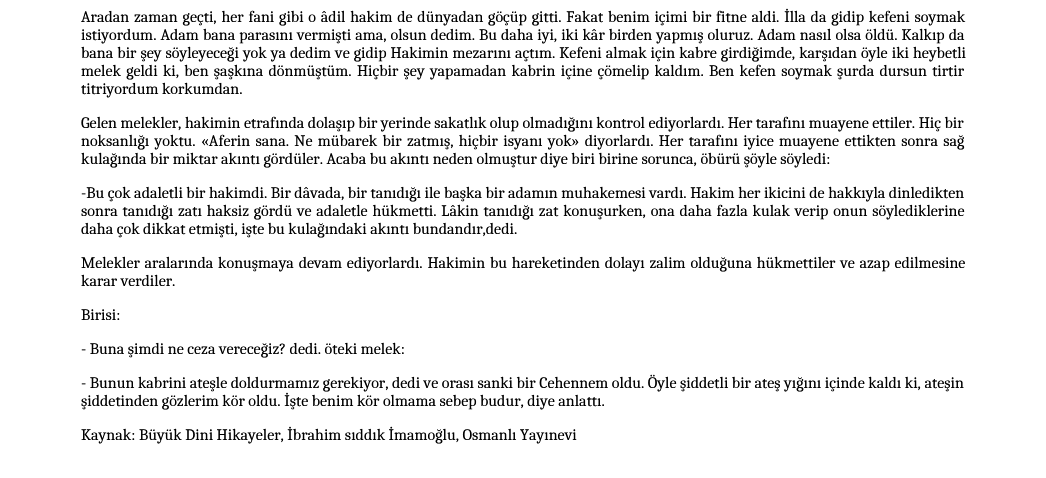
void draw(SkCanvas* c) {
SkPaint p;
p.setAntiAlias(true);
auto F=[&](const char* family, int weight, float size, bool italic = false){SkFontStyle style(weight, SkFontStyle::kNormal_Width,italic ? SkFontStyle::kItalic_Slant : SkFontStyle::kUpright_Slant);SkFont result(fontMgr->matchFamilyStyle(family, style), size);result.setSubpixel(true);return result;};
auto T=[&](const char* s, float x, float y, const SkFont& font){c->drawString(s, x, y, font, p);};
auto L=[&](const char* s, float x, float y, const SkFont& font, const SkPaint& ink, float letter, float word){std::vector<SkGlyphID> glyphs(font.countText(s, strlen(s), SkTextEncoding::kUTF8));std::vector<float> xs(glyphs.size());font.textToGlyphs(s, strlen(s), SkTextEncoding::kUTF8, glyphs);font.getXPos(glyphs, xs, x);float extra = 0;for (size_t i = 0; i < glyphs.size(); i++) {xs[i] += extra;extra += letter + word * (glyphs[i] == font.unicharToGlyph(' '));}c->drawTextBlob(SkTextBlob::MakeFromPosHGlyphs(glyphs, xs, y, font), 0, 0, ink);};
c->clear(0xffffffff);
auto f1 = F("Caladea",400,16);
p.setColor(0xff000000);
L("Aradan zaman geçti, her fani gibi o âdil hakim de dünyadan göçüp gitti. Fakat benim içimi bir fitne aldi. İlla da gidip kefeni soymak",81,22,f1,p,0,1.25);
L("istiyordum. Adam bana parasını vermişti ama, olsun dedim. Bu daha iyi, iki kâr birden yapmış oluruz. Adam nasıl olsa öldü. Kalkıp da",81,40,f1,p,0,.5);
L("bana bir şey söyleyeceği yok ya dedim ve gidip Hakimin mezarını açtım. Kefeni almak için kabre girdiğimde, karşıdan öyle iki heybetli",81,58,f1,p,0,.5);
L("melek geldi ki, ben şaşkına dönmüştüm. Hiçbir şey yapamadan kabrin içine çömelip kaldım. Ben kefen soymak şurda dursun tirtir",81,76,f1,p,0,1.75);
T("titriyordum korkumdan.",81,94,f1);
T("Gelen melekler, hakimin etrafında dolaşıp bir yerinde sakatlık olup olmadığını kontrol ediyorlardı. Her tarafını muayene ettiler. Hiç bir",81,128,f1);
L("noksanlığı yoktu. «Aferin sana. Ne mübarek bir zatmış, hiçbir isyanı yok» diyorlardı. Her tarafını iyice muayene ettikten sonra sağ",81,146,f1,p,0,1.8);
T("kulağında bir miktar akıntı gördüler. Acaba bu akıntı neden olmuştur diye biri birine sorunca, öbürü şöyle söyledi:",81,164,f1);
T("-Bu çok adaletli bir hakimdi. Bir dâvada, bir tanıdığı ile başka bir adamın muhakemesi vardı. Hakim her ikicini de hakkıyla dinledikten",81,198,f1);
L("sonra tanıdığı zatı haksiz gördü ve adaletle hükmetti. Lâkin tanıdığı zat konuşurken, ona daha fazla kulak verip onun söylediklerine",81,216,f1,p,0,1.25);
T("daha çok dikkat etmişti, işte bu kulağındaki akıntı bundandır,dedi.",81,234,f1);
L("Melekler aralarında konuşmaya devam ediyorlardı. Hakimin bu hareketinden dolayı zalim olduğuna hükmettiler ve azap edilmesine",81,268,f1,p,0,1.25);
T("karar verdiler.",81,286,f1);
T("Birisi:",81,320,f1);
T("- Buna şimdi ne ceza vereceğiz? dedi. öteki melek:",81,354,f1);
T("- Bunun kabrini ateşle doldurmamız gerekiyor, dedi ve orası sanki bir Cehennem oldu. Öyle şiddetli bir ateş yığını içinde kaldı ki, ateşin",81,388,f1);
T("şiddetinden gözlerim kör oldu. İşte benim kör olmama sebep budur, diye anlattı.",81,406,f1);
T("Kaynak: Büyük Dini Hikayeler, İbrahim sıddık İmamoğlu, Osmanlı Yayınevi",81,440,f1);
}
